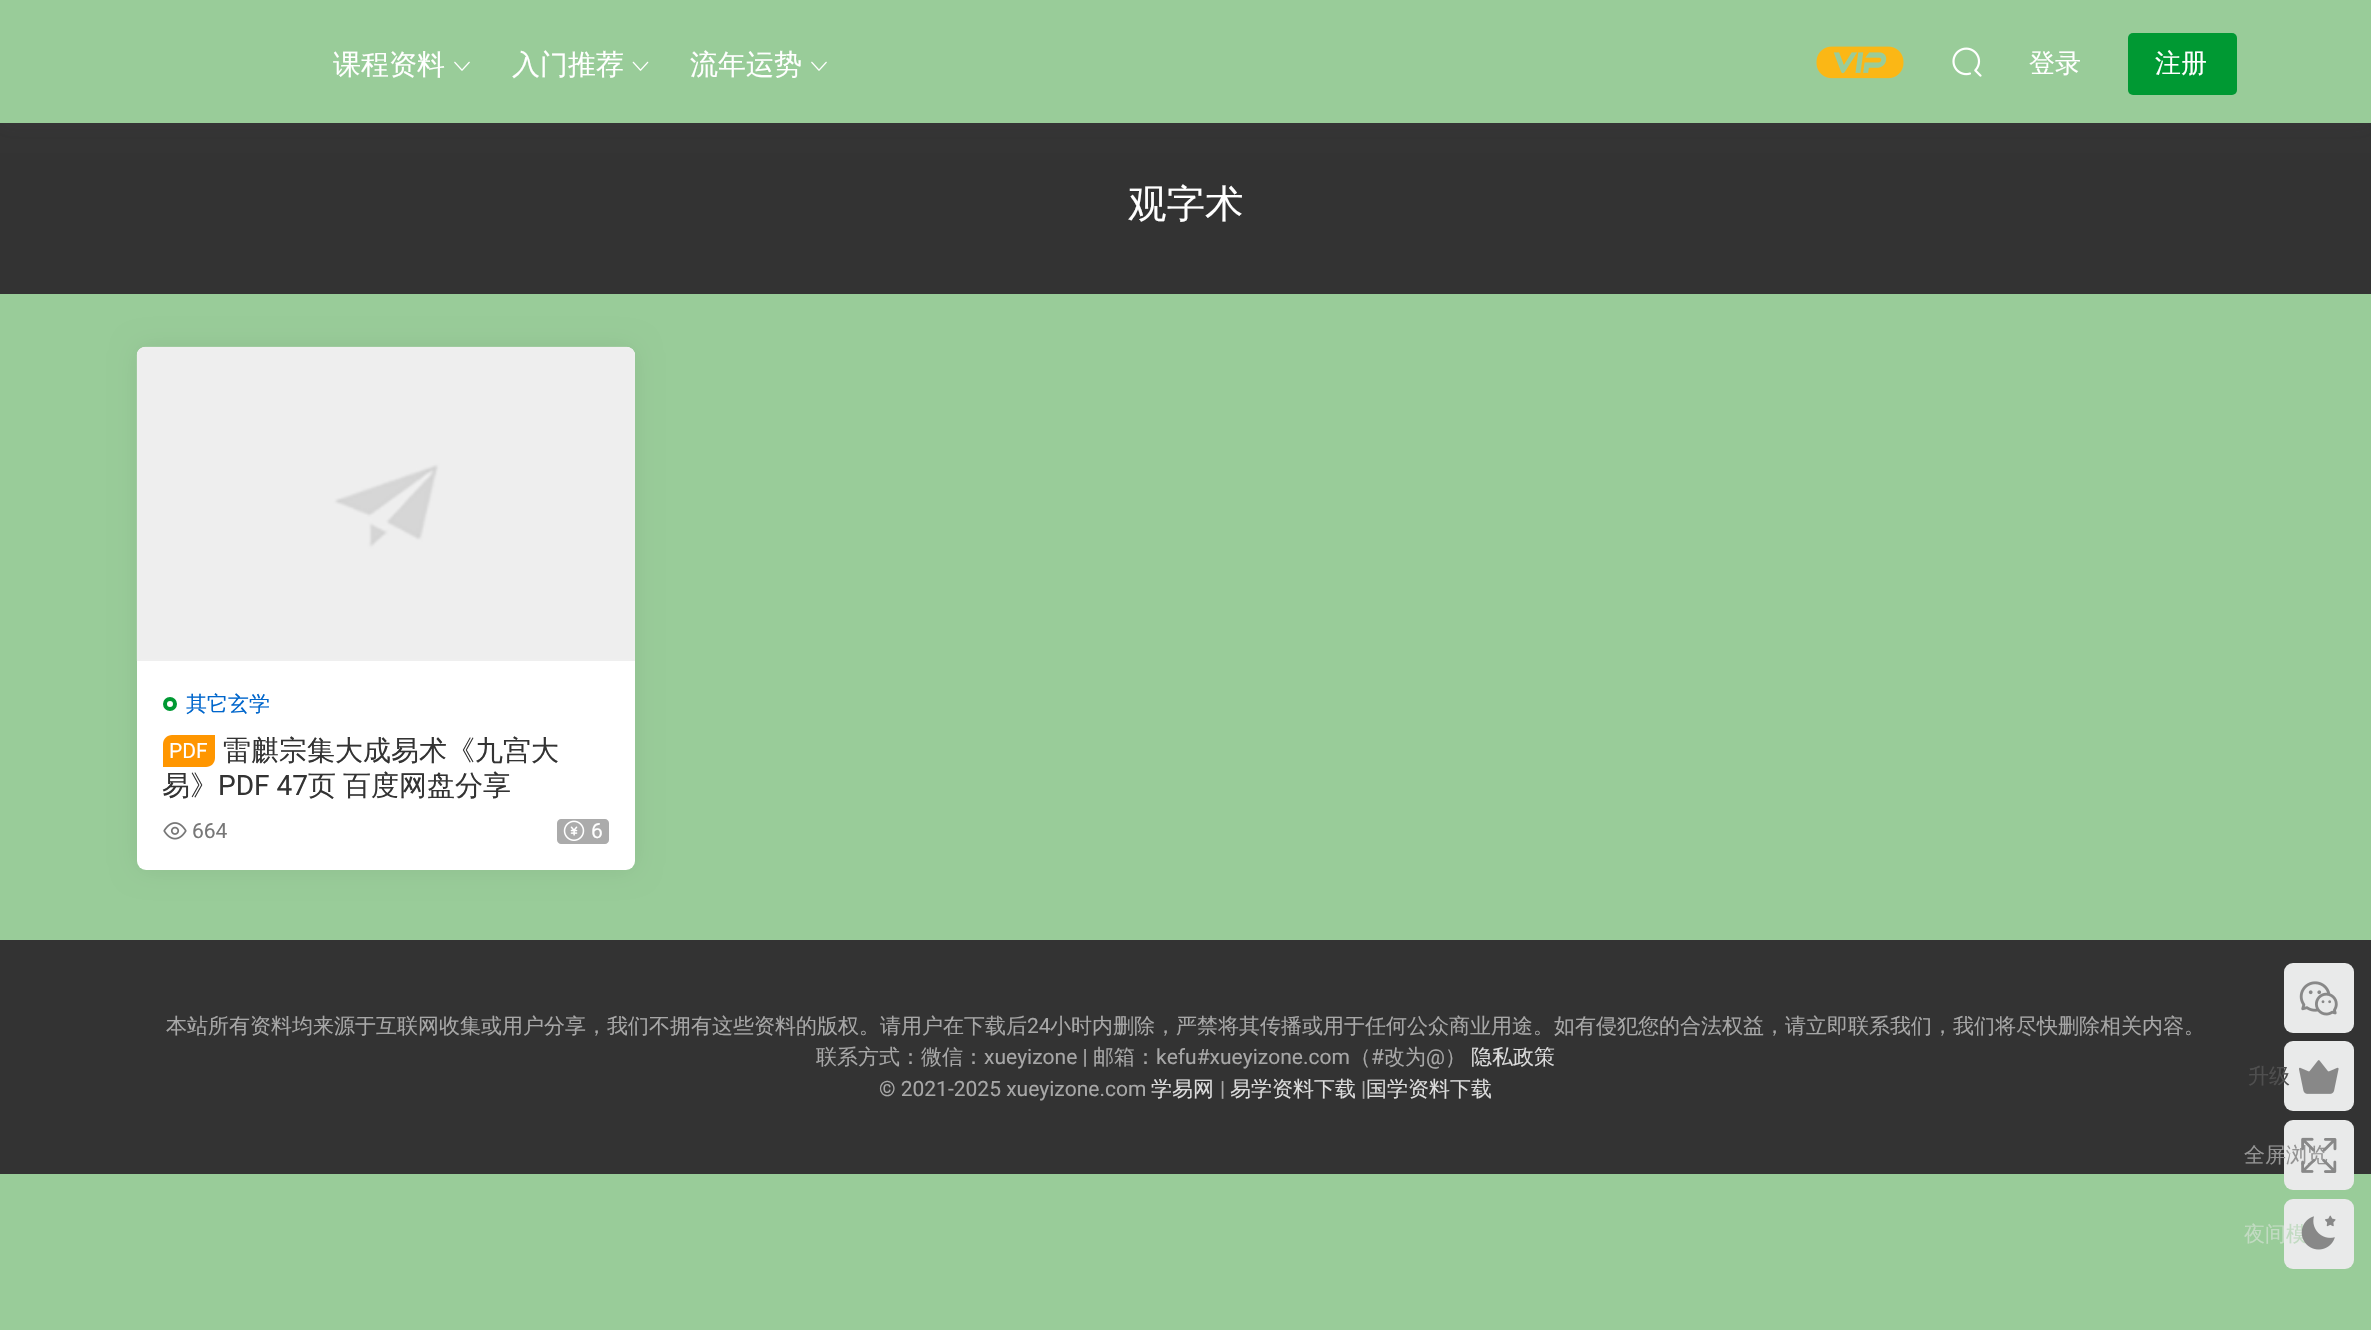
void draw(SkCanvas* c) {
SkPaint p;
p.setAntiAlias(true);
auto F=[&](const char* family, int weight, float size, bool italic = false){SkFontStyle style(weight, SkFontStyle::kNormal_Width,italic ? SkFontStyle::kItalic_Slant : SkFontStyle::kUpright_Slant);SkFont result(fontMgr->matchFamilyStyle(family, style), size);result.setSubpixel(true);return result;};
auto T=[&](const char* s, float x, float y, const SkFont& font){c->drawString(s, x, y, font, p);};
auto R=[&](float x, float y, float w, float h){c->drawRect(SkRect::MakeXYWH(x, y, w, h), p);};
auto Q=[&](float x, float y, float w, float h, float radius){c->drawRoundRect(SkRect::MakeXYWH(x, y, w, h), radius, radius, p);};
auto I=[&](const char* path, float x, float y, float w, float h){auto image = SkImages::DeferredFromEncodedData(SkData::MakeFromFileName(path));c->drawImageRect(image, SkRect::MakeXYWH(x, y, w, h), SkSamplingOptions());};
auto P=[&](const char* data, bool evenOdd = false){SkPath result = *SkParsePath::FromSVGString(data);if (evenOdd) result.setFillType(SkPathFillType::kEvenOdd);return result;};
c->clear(0xff99cc99);
p.setColor(0xff333333);
R(0,123,2371,171);
p.setColor(0x1a4e5254);
p.setMaskFilter(SkMaskFilter::MakeBlur(kNormal_SkBlurStyle, 9));
c->drawRect(SkRect::MakeXYWH(0,4,2371,122),p);
p.setMaskFilter(nullptr);
p.setColor(0xff99cc99);
R(0,0,2371,123);
auto f1 = F("WenQuanYi Zen Hei",500,28);
p.setColor(0xffffffff);
T("课程资料",333,74,f1);
I("1.png",454,61,16,10);
T("入门推荐",512,74,f1);
I("2.png",632,61,17,10);
T("流年运势",690,74,f1);
I("1.png",811,61,16,10);
I("3.png",1816,46,88,33);
I("4.png",1952,47,30,30);
auto f2 = F("WenQuanYi Zen Hei",500,26);
T("登录",2029,72,f2);
p.setColor(0xff009933);
Q(2128,33,109,62,5);
p.setColor(0xffffffff);
T("注册",2155,72,f2);
auto f3 = F("WenQuanYi Zen Hei",500,38.5);
T("观字术",1128,217,f3);
p.setColor(0x12000000);
p.setMaskFilter(SkMaskFilter::MakeBlur(kNormal_SkBlurStyle, 13));
c->drawRoundRect(SkRect::MakeXYWH(137,347,498,523),9,9,p);
p.setMaskFilter(nullptr);
p.setColor(0xffffffff);
Q(137,347,498,523,9);
c->drawPath(P("M146 347h480c5 0 9 4 9 9v306h-498v-306c0-5 4-9 9-9z"),p);
I("5.png",136,346,499,315);
p.setStroke(true);
p.setStrokeWidth(4);
p.setColor(0xff009933);
c->drawCircle(170,704,5,p);
auto f4 = F("WenQuanYi Zen Hei",500,21);
p.setStroke(false);
p.setColor(0xff0066cc);
T("其它玄学",186,711,f4);
p.setColor(0xffff9600);
c->drawPath(P("M172 735h43v23c0 5-4 9-9 9h-43v-23c0-5 4-9 9-9z"),p);
auto f5 = F("Roboto",400,21);
p.setColor(0xffffffff);
T("PDF",169,758,f5);
p.setColor(0xff333333);
T("雷麒宗集大成易术《九宫大",223,760,f1);
T("易》",162,795,f1);
auto f6 = F("Roboto",400,28);
T("PDF 47",218,795,f6);
T("页",308,795,f1);
T("百度网盘分享",343,795,f1);
I("6.png",163,822,24,18);
p.setColor(0xff777777);
T("664",192,838,f5);
p.setColor(0xffababab);
c->drawPath(P("M561 819h25v25h-25c-2 0-4-2-4-4v-17c0-2 2-4 4-4z"),p);
I("7.png",563,820,22,21);
c->drawPath(P("M586 819h19c2 0 4 2 4 4v17c0 2-2 4-4 4h-19z"),p);
p.setColor(0xffffffff);
T("6",591,838,f5);
p.setColor(0xff333333);
R(0,940,2371,234);
p.setColor(0xffa7a7a7);
T("本站所有资料均来源于互联网收集或用户分享，我们不拥有这些资料的版权。请用户在下载后",166,1033,f4);
T("24",1027,1033,f5);
T("小时内删除，严禁将其传播或用于任何公众商业用途。如有侵犯您的合法权益，请立即联系我们，我们将尽快删除相关内容。",1050,1033,f4);
T("联系方式：微信：",816,1064,f4);
T("xueyizone |",984,1064,f5);
T("邮箱：",1093,1064,f4);
T("kefu#xueyizone.com",1156,1064,f5);
T("（",1350,1064,f4);
T("#",1371,1064,f5);
T("改为",1384,1064,f4);
T("@",1426,1064,f5);
T("）",1445,1064,f4);
p.setColor(0xffdcdcdc);
T("隐私政策",1471,1064,f4);
p.setColor(0xffa7a7a7);
T("© 2021-2025 xueyizone.com",879,1096,f5);
p.setColor(0xffdcdcdc);
T("学易网",1151,1096,f4);
p.setColor(0xffa7a7a7);
T("|",1220,1096,f5);
p.setColor(0xffdcdcdc);
T("易学资料下载",1230,1096,f4);
p.setColor(0xffa7a7a7);
T("|",1361,1096,f5);
p.setColor(0xffdcdcdc);
T("国学资料下载",1366,1096,f4);
p.setColor(0xffe9eaea);
Q(2284,963,70,70,9);
I("8.png",2299,981,39,35);
Q(2284,1041,70,70,9);
p.setColor(0xff4f4f4f);
T("升级",2248,1083,f4);
I("9.png",2299,1060,40,34);
p.setColor(0xffe9eaea);
Q(2284,1120,70,70,9);
p.setColor(0xff949494);
T("全屏浏览",2244,1162,f4);
I("10.png",2301,1137,36,36);
p.setColor(0xffe9eaea);
Q(2284,1199,70,70,9);
p.setColor(0xffc2dbc2);
T("夜间模",2244,1241,f4);
I("11.png",2301,1215,35,35);
}
